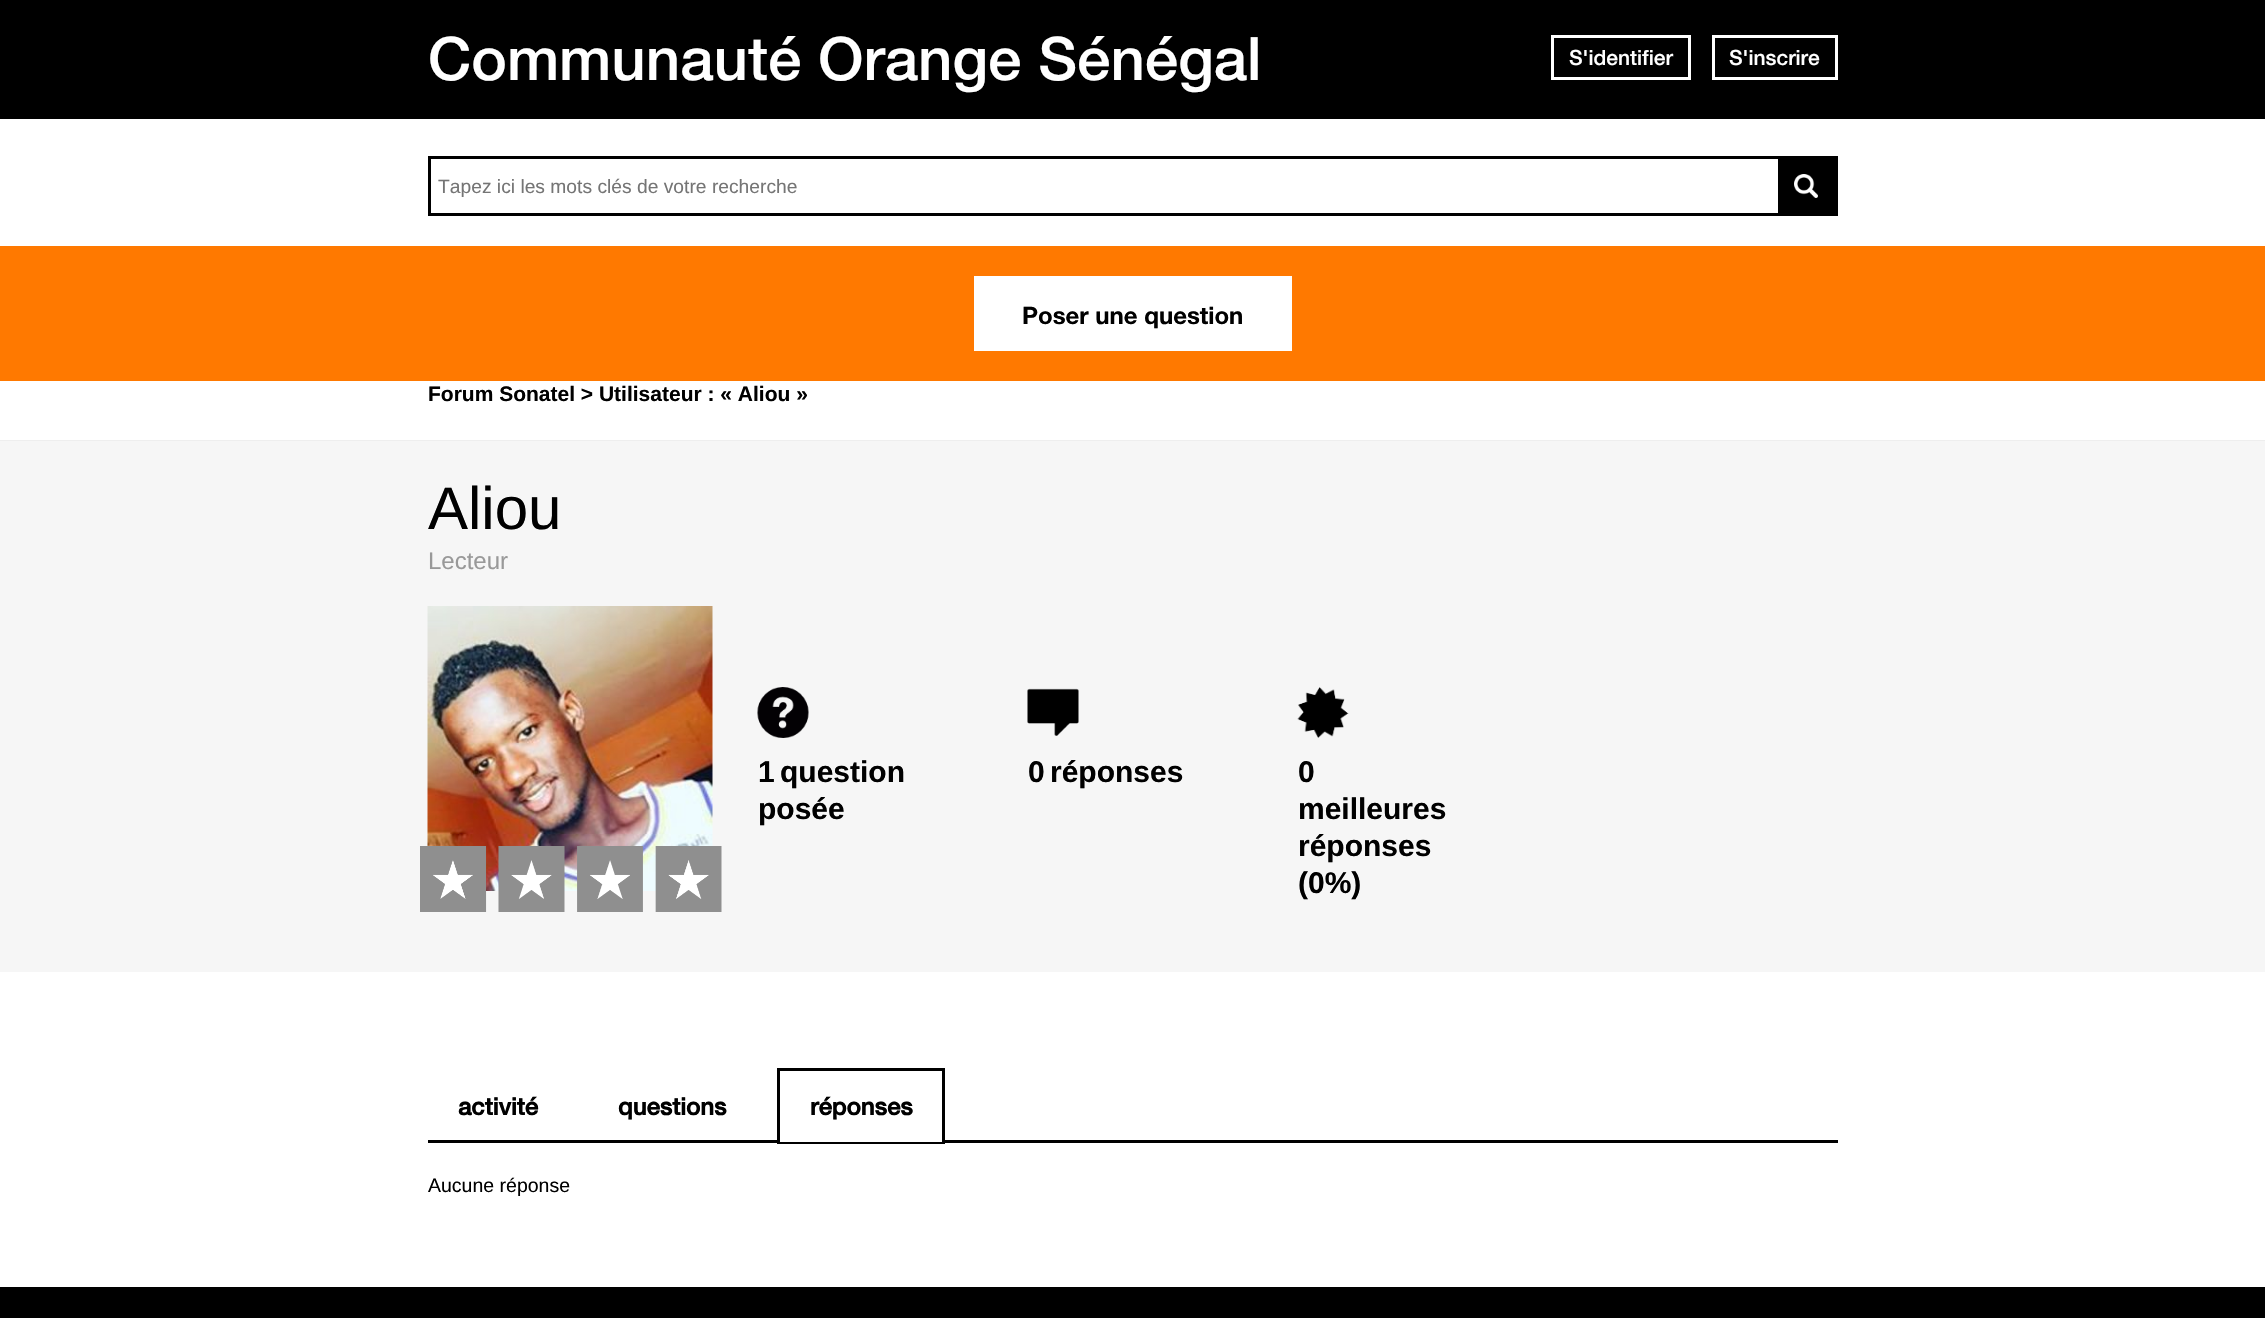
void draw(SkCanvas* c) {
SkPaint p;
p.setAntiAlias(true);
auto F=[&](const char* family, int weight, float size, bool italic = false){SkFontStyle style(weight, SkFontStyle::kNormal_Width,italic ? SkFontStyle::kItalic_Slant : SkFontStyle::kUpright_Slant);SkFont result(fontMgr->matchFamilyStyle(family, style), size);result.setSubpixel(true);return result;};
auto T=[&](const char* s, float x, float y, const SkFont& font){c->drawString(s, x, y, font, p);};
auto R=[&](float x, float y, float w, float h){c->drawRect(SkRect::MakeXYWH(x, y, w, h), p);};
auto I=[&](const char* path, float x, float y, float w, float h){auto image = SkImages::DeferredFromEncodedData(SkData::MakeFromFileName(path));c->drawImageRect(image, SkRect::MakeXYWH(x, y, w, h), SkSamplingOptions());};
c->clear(0xffffffff);
p.setColor(0xff000000);
R(0,0,2265,119);
auto f1 = F("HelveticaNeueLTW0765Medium",500,60);
p.setColor(0xffffffff);
T("Communauté Orange Sénégal",428,80,f1);
p.setStroke(true);
p.setStrokeWidth(3);
c->drawRect(SkRect::MakeXYWH(1552.5,36.5,137,42),p);
auto f2 = F("HelveticaNeueLTW0765Medium",500,21);
p.setStroke(false);
T("S'identifier",1569,65,f2);
p.setStroke(true);
c->drawRect(SkRect::MakeXYWH(1713.5,36.5,123,42),p);
p.setStroke(false);
T("S'inscrire",1729,65,f2);
p.setStroke(true);
p.setColor(0xff000000);
c->drawRect(SkRect::MakeXYWH(429.5,157.5,1407,57),p);
auto f3 = F("Liberation Sans",400,19.25);
p.setStroke(false);
p.setColor(0xff757575);
T("Tapez ici les mots clés de votre recherche",438,193,f3);
p.setColor(0xff000000);
R(1781,159,54,54);
I("1.png",1794,174,24,24);
p.setStroke(true);
c->drawRect(SkRect::MakeXYWH(1779.5,157.5,57,57),p);
p.setStroke(false);
p.setColor(0xffff7900);
R(0,246,2265,135);
p.setColor(0xffffffff);
R(974,276,318,75);
auto f4 = F("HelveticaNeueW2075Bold",700,24);
p.setColor(0xff000000);
T("Poser une question",1022,324,f4);
p.setColor(0xffeeeeee);
R(0,440,2265,1);
auto f5 = F("Liberation Sans",700,21);
p.setColor(0xff000000);
T("Forum Sonatel > Utilisateur : « Aliou »",428,401,f5);
p.setColor(0xfff6f6f6);
R(0,441,2265,531);
auto f6 = F("Liberation Sans",400,60);
p.setColor(0xff000000);
T("Aliou",428,529,f6);
I("2.png",427,606,286,285);
I("3.png",420,846,302,66);
auto f7 = F("Liberation Sans",400,24);
p.setColor(0xff999999);
T("Lecteur",428,569,f7);
I("4.png",757,687,52,51);
auto f8 = F("Liberation Sans",700,30);
p.setColor(0xff000000);
T("1",758,782,f8);
T("question",780,782,f8);
T("posée",758,819,f8);
I("5.png",1027,688,52,48);
T("0",1028,782,f8);
T("réponses",1050,782,f8);
I("6.png",1297,687,52,51);
T("0",1298,782,f8);
T("meilleures",1298,819,f8);
T("réponses",1298,856,f8);
T("(0%)",1298,893,f8);
R(428,1140,1410,3);
auto f9 = F("HelveticaNeueLTW0765Medium",700,24);
T("activité",458,1115,f9);
T("questions",618,1115,f9);
p.setColor(0xffffffff);
R(780,1140,162,2);
p.setColor(0xff000000);
R(777,1068,168,3);
R(942,1068,3,75);
R(777,1143,168,1);
R(777,1068,3,75);
T("réponses",810,1115,f9);
auto f10 = F("Liberation Sans",400,19.5);
T("Aucune réponse",428,1192,f10);
R(0,1287,2265,31);
}
